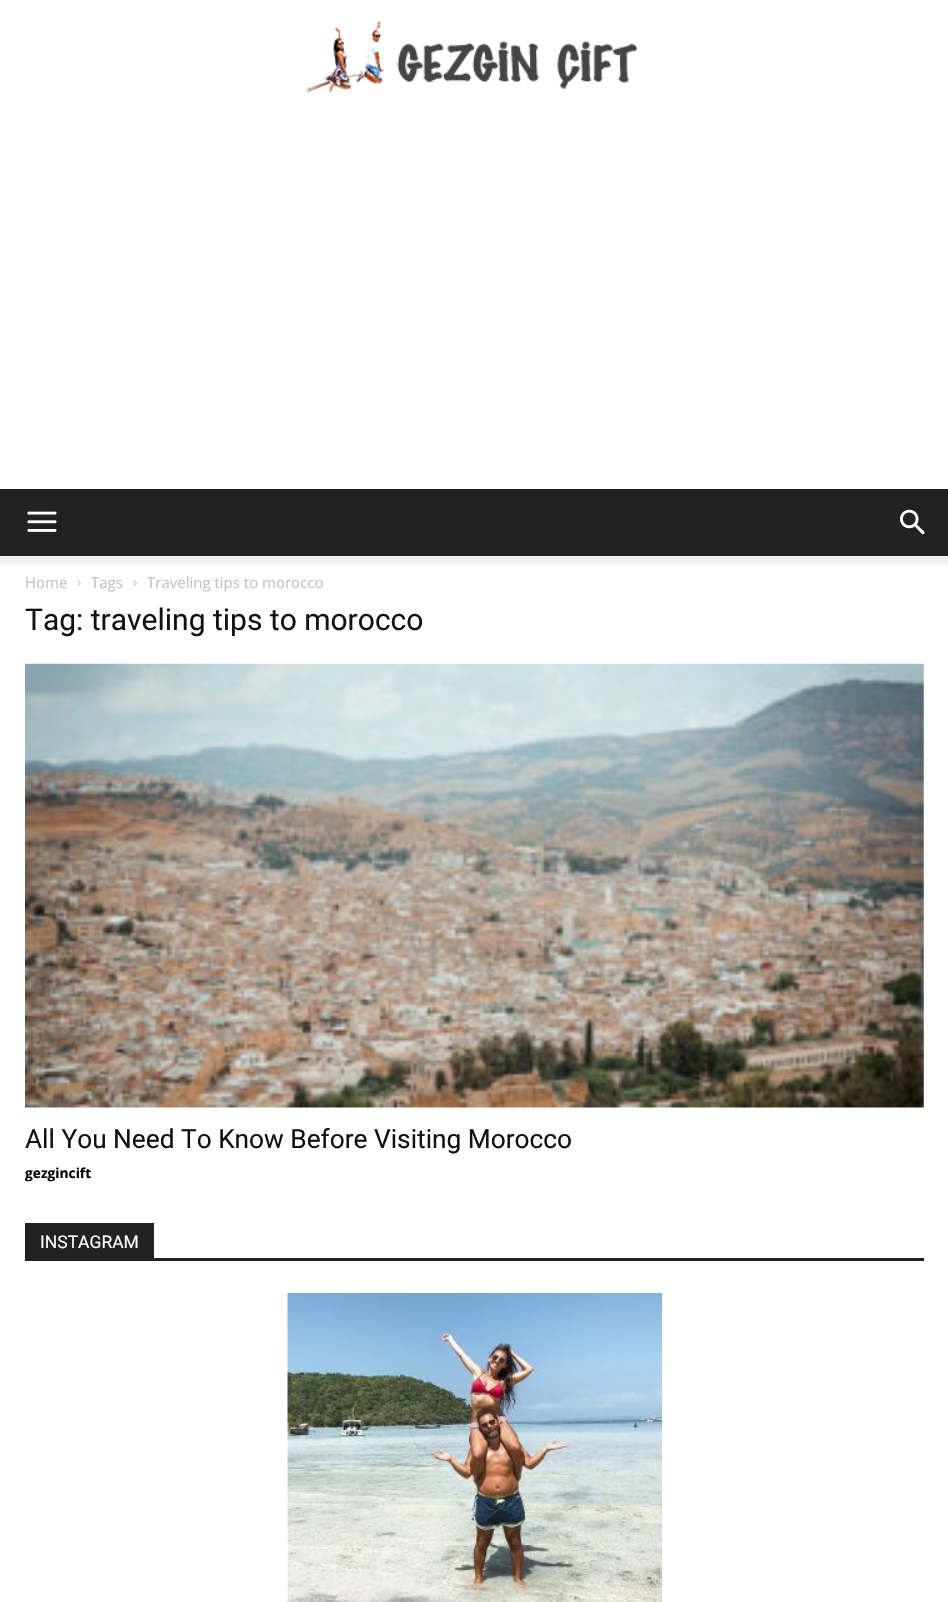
void draw(SkCanvas* c) {
SkPaint p;
p.setAntiAlias(true);
auto F=[&](const char* family, int weight, float size, bool italic = false){SkFontStyle style(weight, SkFontStyle::kNormal_Width,italic ? SkFontStyle::kItalic_Slant : SkFontStyle::kUpright_Slant);SkFont result(fontMgr->matchFamilyStyle(family, style), size);result.setSubpixel(true);return result;};
auto T=[&](const char* s, float x, float y, const SkFont& font){c->drawString(s, x, y, font, p);};
auto R=[&](float x, float y, float w, float h){c->drawRect(SkRect::MakeXYWH(x, y, w, h), p);};
auto I=[&](const char* path, float x, float y, float w, float h){auto image = SkImages::DeferredFromEncodedData(SkData::MakeFromFileName(path));c->drawImageRect(image, SkRect::MakeXYWH(x, y, w, h), SkSamplingOptions());};
c->clear(0xffffffff);
I("1.png",305,21,333,72);
p.setColor(0xff222222);
R(0,489,948,67);
I("2.png",27,511,30,21);
I("3.png",900,509,25,26);
I("4.png",0,556,948,11);
auto f1 = F("Open Sans",400,15);
p.setColor(0xffc3c3c3);
T("Home",25,588,f1);
I("5.png",77,580,4,6);
T("Tags",91,588,f1);
I("6.png",133,580,4,6);
T("Traveling tips to morocco",147,588,f1);
auto f2 = F("Roboto",400,30);
p.setColor(0xff111111);
T("Tag: traveling tips to morocco",25,630,f2);
I("7.png",25,663,899,445);
auto f3 = F("Roboto",400,26.25);
T("All You Need To Know Before Visiting Morocco",25,1148,f3);
auto f4 = F("Open Sans",700,13.75);
p.setColor(0xff000000);
T("gezgincift",25,1178,f4);
p.setColor(0xff222222);
R(25,1258,899,3);
R(25,1223,129,35);
auto f5 = F("Roboto",400,17.5);
p.setColor(0xffffffff);
T("INSTAGRAM",40,1248,f5);
I("8.png",287,1293,375,309);
}
